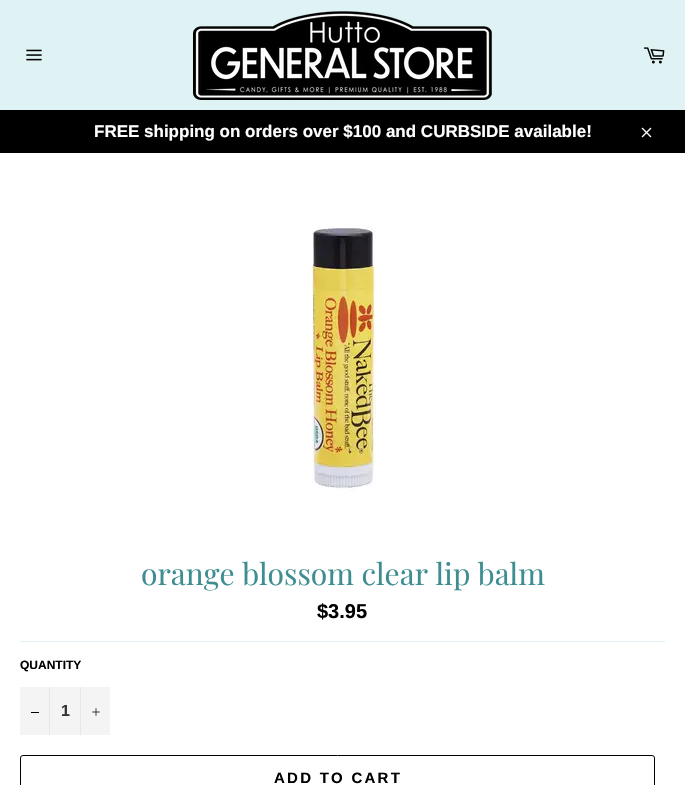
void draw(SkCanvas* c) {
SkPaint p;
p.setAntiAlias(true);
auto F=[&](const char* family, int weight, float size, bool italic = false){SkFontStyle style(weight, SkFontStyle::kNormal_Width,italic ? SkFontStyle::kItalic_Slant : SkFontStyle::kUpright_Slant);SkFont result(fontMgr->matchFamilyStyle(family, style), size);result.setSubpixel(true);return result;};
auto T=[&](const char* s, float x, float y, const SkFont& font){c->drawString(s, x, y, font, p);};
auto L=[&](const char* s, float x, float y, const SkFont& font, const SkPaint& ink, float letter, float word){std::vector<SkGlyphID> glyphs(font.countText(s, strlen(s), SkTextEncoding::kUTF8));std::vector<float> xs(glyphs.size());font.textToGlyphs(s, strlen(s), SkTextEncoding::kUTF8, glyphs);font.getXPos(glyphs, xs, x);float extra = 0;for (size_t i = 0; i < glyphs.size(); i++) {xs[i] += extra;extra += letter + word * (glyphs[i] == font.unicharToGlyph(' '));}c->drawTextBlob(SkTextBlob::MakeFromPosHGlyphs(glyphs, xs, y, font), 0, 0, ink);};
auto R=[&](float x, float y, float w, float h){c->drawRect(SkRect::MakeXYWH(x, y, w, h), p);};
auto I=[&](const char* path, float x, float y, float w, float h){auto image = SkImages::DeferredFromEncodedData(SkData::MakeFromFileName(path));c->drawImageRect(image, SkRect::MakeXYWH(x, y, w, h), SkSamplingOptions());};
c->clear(0xffdff3f4);
I("1.png",26,49,16,12);
I("2.png",193,11,299,89);
I("3.png",643,47,22,17);
p.setColor(0xff000000);
R(0,110,685,43);
auto f1 = F("Arimo",700,17);
p.setColor(0xffffffff);
T("FREE shipping on orders over $100 and CURBSIDE available!",94,137,f1);
I("4.png",641,127,11,11);
R(0,153,685,632);
I("5.png",311,223,65,268);
auto f2 = F("Playfair Display",400,30);
p.setColor(0xff3e8e91);
T("orange blossom clear lip balm",141,585,f2);
auto f3 = F("Arimo",700,20);
p.setColor(0xff000000);
T("$3.95",317,618,f3);
p.setColor(0xffdff3f4);
R(20,641,645,1);
auto f4 = F("Arimo",700,12);
p.setColor(0xff000000);
T("QUANTITY",20,669,f4);
p.setColor(0xfff4f4f4);
R(20,687,90,48);
p.setColor(0xffe7e7e7);
R(49,687,1,48);
p.setColor(0xff000000);
R(31,712,8,1);
auto f5 = F("Arimo",700,16);
p.setColor(0xff333333);
T("1",61,716,f5);
p.setColor(0xffe7e7e7);
R(80,687,1,48);
I("6.png",92,708,8,8);
p.setStroke(true);
p.setStrokeWidth(1);
p.setColor(0xff000000);
c->drawRoundRect(SkRect::MakeXYWH(20.5,755.5,634,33),2.5,2.5,p);
auto f6 = F("Arimo",700,15);
p.setStroke(false);
L("ADD TO CART",274,783,f6,p,2.25,0);
}
